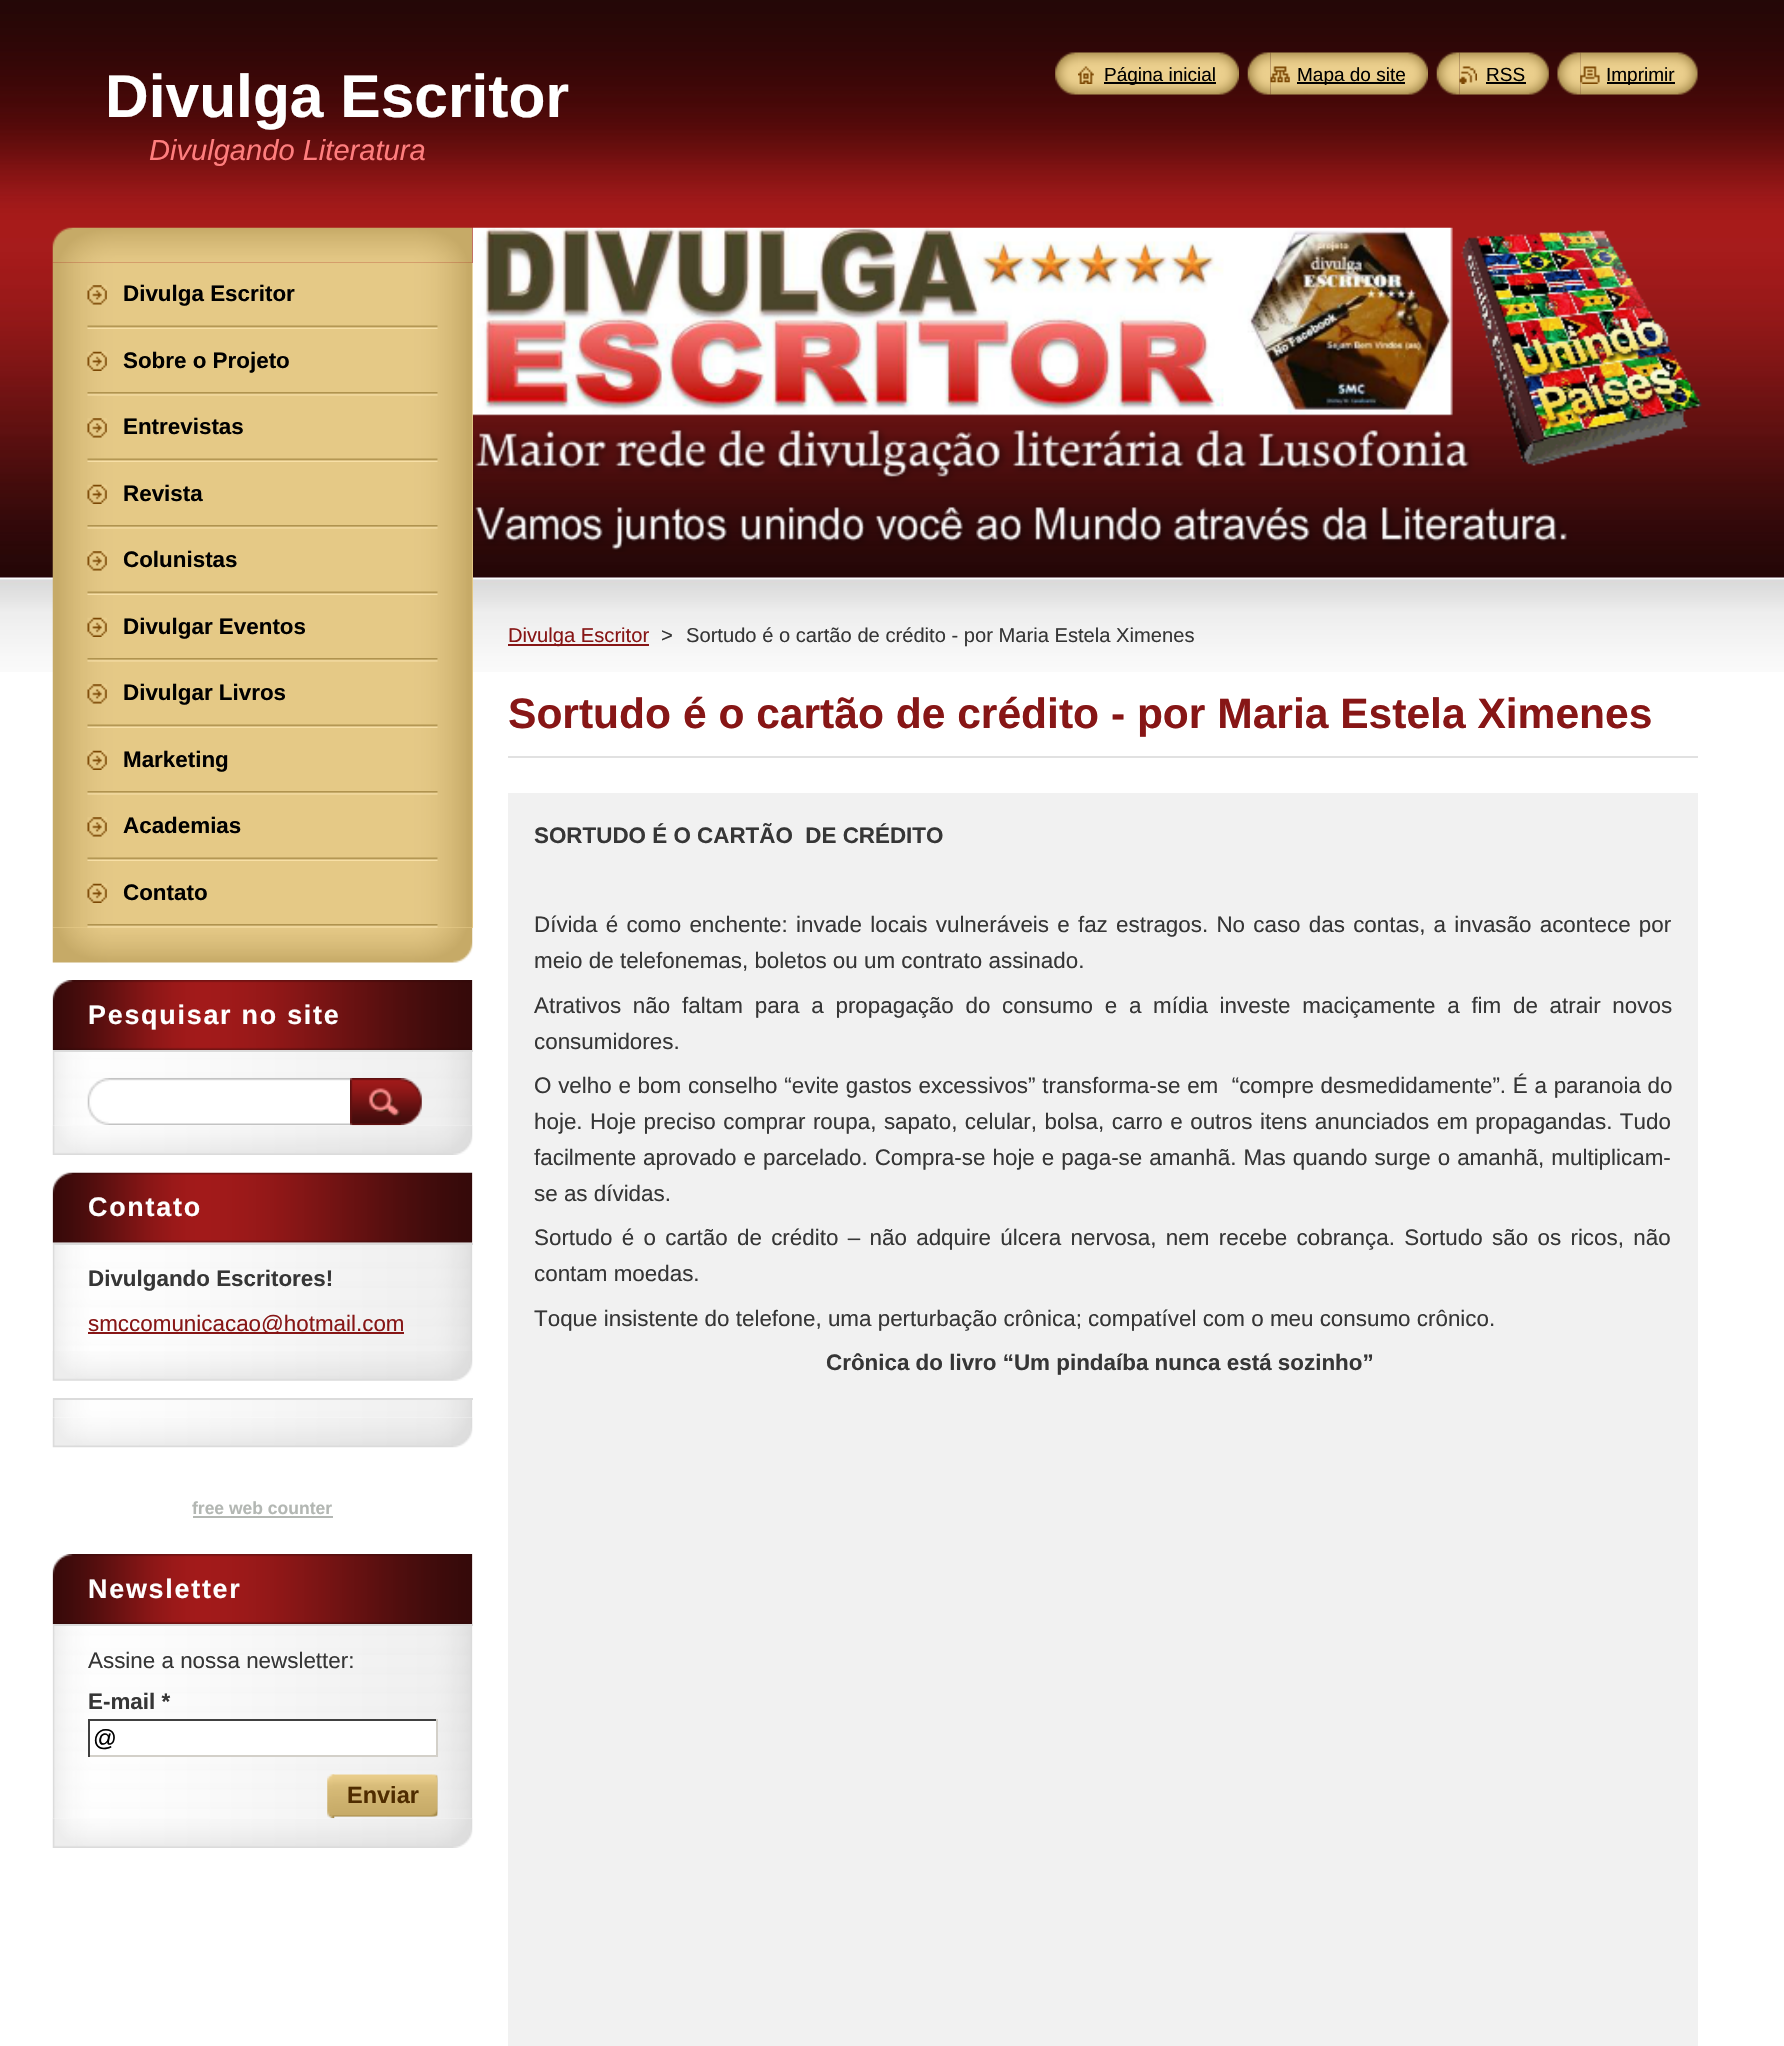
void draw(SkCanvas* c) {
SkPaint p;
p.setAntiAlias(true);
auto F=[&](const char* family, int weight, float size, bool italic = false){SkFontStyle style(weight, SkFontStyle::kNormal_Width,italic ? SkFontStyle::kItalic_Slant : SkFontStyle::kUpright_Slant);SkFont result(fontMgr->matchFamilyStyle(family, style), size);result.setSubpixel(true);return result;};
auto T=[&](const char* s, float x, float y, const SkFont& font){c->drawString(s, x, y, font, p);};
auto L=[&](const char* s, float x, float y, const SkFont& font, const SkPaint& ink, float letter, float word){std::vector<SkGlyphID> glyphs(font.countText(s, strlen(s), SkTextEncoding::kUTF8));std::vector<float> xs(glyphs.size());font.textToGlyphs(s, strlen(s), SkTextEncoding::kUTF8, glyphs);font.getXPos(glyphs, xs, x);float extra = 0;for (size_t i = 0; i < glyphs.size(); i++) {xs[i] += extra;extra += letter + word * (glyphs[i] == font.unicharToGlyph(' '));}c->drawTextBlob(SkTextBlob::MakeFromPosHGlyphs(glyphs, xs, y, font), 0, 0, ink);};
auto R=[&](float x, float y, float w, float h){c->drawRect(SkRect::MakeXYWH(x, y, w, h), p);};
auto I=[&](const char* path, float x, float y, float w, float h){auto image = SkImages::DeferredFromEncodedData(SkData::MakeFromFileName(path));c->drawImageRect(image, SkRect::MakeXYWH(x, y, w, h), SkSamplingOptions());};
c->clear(0xffffffff);
I("1.png",0,0,1784,672);
auto f1 = F("Liberation Sans",700,60.5);
p.setColor(0xffffffff);
T("Divulga Escritor",105,117,f1);
auto f2 = F("Liberation Sans",400,29.1,true);
p.setColor(0xffff7e7e);
T("Divulgando Literatura",149,160,f2);
I("2.png",1055,52,23,43);
I("3.png",1078,52,161,43);
I("4.png",1078,66,16,18);
p.setColor(0xff000000);
R(1104,82,112,2);
auto f3 = F("Liberation Sans",400,19);
T("Página inicial",1104,81,f3);
I("5.png",1247,52,24,43);
I("6.png",1270,52,158,43);
I("7.png",1270,66,20,17);
R(1297,82,108,2);
T("Mapa do site",1297,81,f3);
I("8.png",1436,52,24,43);
I("9.png",1459,52,90,43);
I("10.png",1459,66,18,18);
T("RSS",1486,81,f3);
R(1486,82,40,2);
I("11.png",1557,52,24,43);
I("12.png",1580,52,118,43);
I("13.png",1580,66,20,18);
R(1607,82,68,2);
T("Imprimir",1606,81,f3);
I("14.png",52,227,421,36);
I("15.png",52,927,421,36);
p.setColor(0xffebcf8d);
R(53,263,420,665);
I("16.png",52,262,421,666);
I("17.png",87,325,351,4);
I("18.png",87,285,20,20);
auto f4 = F("Liberation Sans",700,22.4);
p.setColor(0xff000000);
T("Divulga Escritor",123,301,f4);
I("19.png",87,392,351,4);
I("20.png",87,351,20,20);
T("Sobre o Projeto",123,368,f4);
I("17.png",87,458,351,4);
I("18.png",87,418,20,20);
T("Entrevistas",123,434,f4);
I("19.png",87,525,351,4);
I("20.png",87,484,20,20);
T("Revista",123,501,f4);
I("17.png",87,591,351,4);
I("18.png",87,551,20,20);
T("Colunistas",123,567,f4);
I("19.png",87,658,351,4);
I("20.png",87,617,20,20);
T("Divulgar Eventos",123,634,f4);
I("17.png",87,724,351,4);
I("18.png",87,684,20,20);
T("Divulgar Livros",123,700,f4);
I("19.png",87,791,351,4);
I("20.png",87,750,20,20);
T("Marketing",123,767,f4);
I("17.png",87,857,351,4);
I("18.png",87,817,20,20);
T("Academias",123,833,f4);
I("21.png",87,924,351,4);
I("20.png",87,883,20,20);
T("Contato",123,900,f4);
I("22.png",52,1125,421,30);
I("23.png",52,980,421,70);
auto f5 = F("Liberation Sans",700,26.9);
p.setColor(0xffffffff);
L("Pesquisar no site",88,1024,f5,p,1.75,0);
I("24.png",52,1050,421,75);
p.setColor(0xffdbdbdb);
R(53,1050,420,2);
I("25.png",87,1078,263,47);
I("26.png",350,1078,72,48);
I("27.png",52,1351,421,30);
I("29.png",52,1242,421,109);
I("28.png",52,1172,421,71);
p.setColor(0xffffffff);
L("Contato",88,1216,f5,p,1.75,0);
p.setColor(0xffdbdbdb);
R(53,1243,420,2);
p.setColor(0xff363636);
T("Divulgando Escritores!",88,1286,f4);
p.setColor(0xff871616);
R(88,1332,316,2);
auto f6 = F("Liberation Sans",400,22.4);
T("smccomunicacao@hotmail.com",88,1331,f6);
I("30.png",52,1417,421,31);
I("31.png",52,1398,421,20);
p.setColor(0xffdbdbdb);
R(53,1398,420,2);
auto f7 = F("Liberation Sans",700,17.5);
p.setColor(0xffb3b7b3);
T("free web counter",192,1514,f7);
R(193,1516,140,2);
I("32.png",52,1818,421,30);
I("23.png",52,1554,421,70);
p.setColor(0xffffffff);
L("Newsletter",88,1598,f5,p,1.75,0);
I("33.png",52,1624,421,194);
p.setColor(0xffdbdbdb);
R(53,1624,420,2);
p.setColor(0xff363636);
T("Assine a nossa newsletter:",88,1668,f6);
T("E-mail *",88,1709,f4);
p.setColor(0xffffffff);
R(90,1721,346,34);
p.setColor(0xff404040);
R(88,1719,350,2);
p.setColor(0xffd3d0c9);
R(436,1719,2,38);
R(88,1755,350,2);
p.setColor(0xff404040);
R(88,1719,2,38);
auto f8 = F("Liberation Sans",400,23.5);
p.setColor(0xff000000);
T("@",93,1746,f8);
I("34.png",327,1774,8,45);
I("35.png",332,1774,106,43);
auto f9 = F("Liberation Sans",700,23.5);
p.setColor(0xff4f2c00);
T("Enviar",347,1803,f9);
I("36.png",472,227,1230,325);
p.setColor(0xff871616);
R(508,644,141,2);
auto f10 = F("Liberation Sans",400,20.15);
T("Divulga Escritor",508,642,f10);
p.setColor(0xff363636);
T(">",661,642,f10);
T("Sortudo é o cartão de crédito - por Maria Estela Ximenes",686,642,f10);
p.setColor(0xffe1e1e1);
R(508,756,1190,2);
auto f11 = F("Liberation Sans",700,42.55);
p.setColor(0xff871616);
T("Sortudo é o cartão de crédito - por Maria Estela Ximenes",508,728,f11);
p.setColor(0xfff1f1f1);
R(508,793,1190,1253);
p.setColor(0xff363636);
T("SORTUDO É O CARTÃO  DE CRÉDITO",534,843,f4);
L("Dívida é como enchente: invade locais vulneráveis e faz estragos. No caso das contas, a invasão acontece por",534,932,f6,p,0,2);
T("meio de telefonemas, boletos ou um contrato assinado.",534,968,f6);
L("Atrativos não faltam para a propagação do consumo e a mídia investe maciçamente a fim de atrair novos",534,1013,f6,p,0,5.5);
T("consumidores.",534,1049,f6);
L("O velho e bom conselho “evite gastos excessivos” transforma-se em  “compre desmedidamente”. É a paranoia do",534,1093,f6,p,0,.5);
L("hoje. Hoje preciso comprar roupa, sapato, celular, bolsa, carro e outros itens anunciados em propagandas. Tudo",534,1129,f6,p,0,1.25);
L("facilmente aprovado e parcelado. Compra-se hoje e paga-se amanhã. Mas quando surge o amanhã, multiplicam-",534,1165,f6,p,0,.8);
T("se as dívidas.",534,1201,f6);
L("Sortudo é o cartão de crédito – não adquire úlcera nervosa, nem recebe cobrança. Sortudo são os ricos, não",534,1245,f6,p,0,3.1);
T("contam moedas.",534,1281,f6);
T("Toque insistente do telefone, uma perturbação crônica; compatível com o meu consumo crônico.",534,1326,f6);
T("Crônica do livro “Um pindaíba nunca está sozinho”",826,1370,f4);
}
